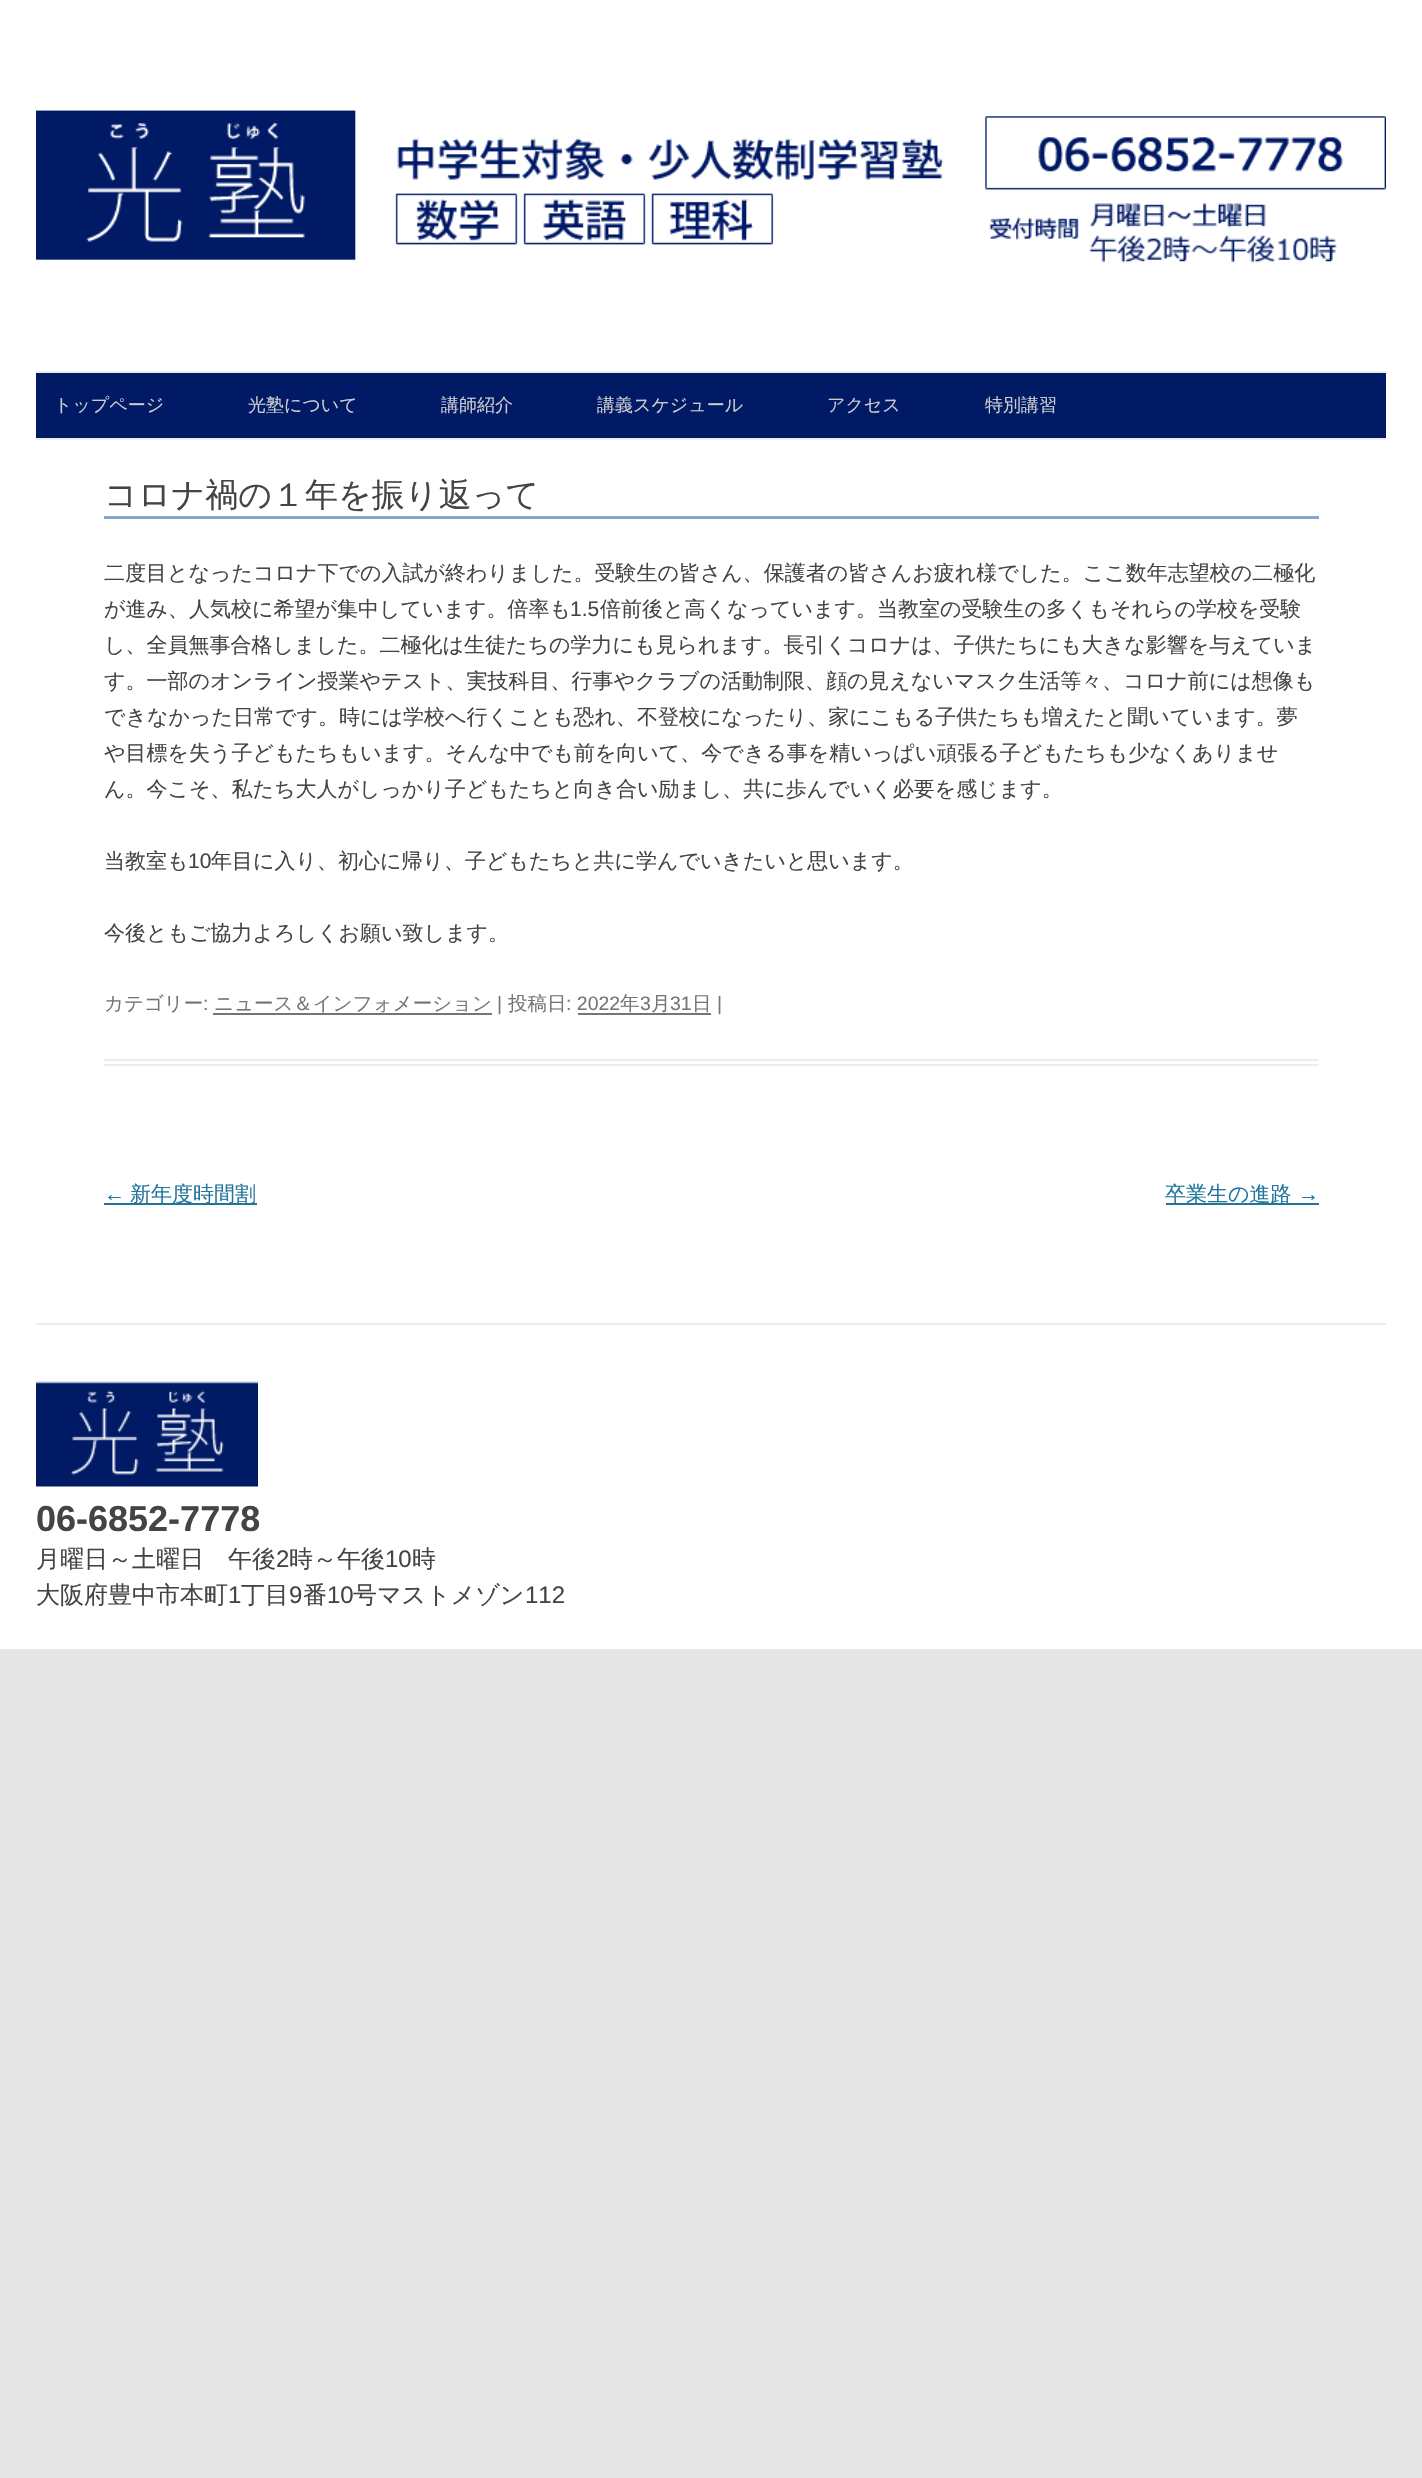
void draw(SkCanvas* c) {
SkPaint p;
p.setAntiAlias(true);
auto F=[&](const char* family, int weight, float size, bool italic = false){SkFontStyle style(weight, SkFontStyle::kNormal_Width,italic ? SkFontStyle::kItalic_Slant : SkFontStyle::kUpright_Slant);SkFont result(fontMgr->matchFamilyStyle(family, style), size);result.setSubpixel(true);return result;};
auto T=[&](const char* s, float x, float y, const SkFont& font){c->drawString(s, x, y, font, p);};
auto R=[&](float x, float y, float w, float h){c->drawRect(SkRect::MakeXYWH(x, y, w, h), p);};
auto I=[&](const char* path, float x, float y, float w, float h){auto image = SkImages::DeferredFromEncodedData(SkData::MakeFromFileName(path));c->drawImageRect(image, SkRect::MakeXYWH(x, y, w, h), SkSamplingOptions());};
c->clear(0xffe6e6e6);
p.setColor(0xffffffff);
R(0,0,1422,1649);
I("1.png",36,110,1350,153);
p.setColor(0xff001a66);
R(36,373,1350,65);
p.setColor(0xffededed);
R(36,371,1350,2);
R(36,438,1350,2);
auto f1 = F("WenQuanYi Zen Hei",500,18);
p.setColor(0xffcccccc);
T("トップページ",54,411,f1);
T("光塾について",248,411,f1);
T("講師紹介",441,411,f1);
T("講義スケジュール",597,411,f1);
T("アクセス",827,411,f1);
T("特別講習",985,411,f1);
p.setColor(0xffededed);
R(104,1059,1215,2);
R(104,1064,1215,2);
p.setColor(0xff84a7ce);
R(104,516,1215,3);
auto f2 = F("WenQuanYi Zen Hei",500,33);
p.setColor(0xff444444);
T("コロナ禍の１年を振り返って",104,506,f2);
auto f3 = F("WenQuanYi Zen Hei",500,21);
T("二度目となったコロナ下での入試が終わりました。受験生の皆さん、保護者の皆さんお疲れ様でした。ここ数年志望校の二極化",104,580,f3);
T("が進み、人気校に希望が集中しています。倍率も",104,616,f3);
auto f4 = F("Liberation Sans",400,21);
T("1.5",570,616,f4);
T("倍前後と高くなっています。当教室の受験生の多くもそれらの学校を受験",600,616,f3);
T("し、全員無事合格しました。二極化は生徒たちの学力にも見られます。長引くコロナは、子供たちにも大きな影響を与えていま",104,652,f3);
T("す。一部のオンライン授業やテスト、実技科目、行事やクラブの活動制限、顔の見えないマスク生活等々、コロナ前には想像も",104,688,f3);
T("できなかった日常です。時には学校へ行くことも恐れ、不登校になったり、家にこもる子供たちも増えたと聞いています。夢",104,724,f3);
T("や目標を失う子どもたちもいます。そんな中でも前を向いて、今できる事を精いっぱい頑張る子どもたちも少なくありませ",104,760,f3);
T("ん。今こそ、私たち大人がしっかり子どもたちと向き合い励まし、共に歩んでいく必要を感じます。",104,796,f3);
T("当教室も",104,868,f3);
T("10",188,868,f4);
T("年目に入り、初心に帰り、子どもたちと共に学んでいきたいと思います。",211,868,f3);
T("今後ともご協力よろしくお願い致します。",104,940,f3);
auto f5 = F("WenQuanYi Zen Hei",500,19.5);
p.setColor(0xff757575);
T("カテゴリー",104,1010,f5);
auto f6 = F("Liberation Sans",400,19.5);
T(":",203,1010,f6);
T("ニュース＆インフォメーション",214,1010,f5);
R(213,1013,279,2);
T("|",497,1010,f6);
T("投稿日",508,1010,f5);
T(": 2022",566,1010,f6);
T("年",620,1010,f5);
T("3",640,1010,f6);
T("月",651,1010,f5);
R(578,1013,133,2);
T("31",670,1010,f6);
T("日",692,1010,f5);
T("|",717,1010,f6);
p.setColor(0xff21759b);
T("←",104,1201,f4);
R(104,1203,153,2);
T("新年度時間割",130,1201,f3);
R(1166,1203,153,2);
T("卒業生の進路",1165,1201,f3);
T("→",1298,1201,f4);
p.setColor(0xffededed);
R(36,1323,1350,2);
I("2.png",36,1381,222,106);
auto f7 = F("Liberation Sans",700,36);
p.setColor(0xff444444);
T("06-6852-7778",36,1531,f7);
auto f8 = F("WenQuanYi Zen Hei",500,24);
T("月曜日～土曜日　午後",36,1567,f8);
auto f9 = F("Liberation Sans",400,24);
T("2",276,1567,f9);
T("時～午後",289,1567,f8);
T("10",385,1567,f9);
T("時",412,1567,f8);
T("大阪府豊中市本町",36,1603,f8);
T("1",228,1603,f9);
T("丁目",241,1603,f8);
T("9",289,1603,f9);
T("番",303,1603,f8);
T("10",327,1603,f9);
T("号マストメゾン",353,1603,f8);
T("112",525,1603,f9);
}
